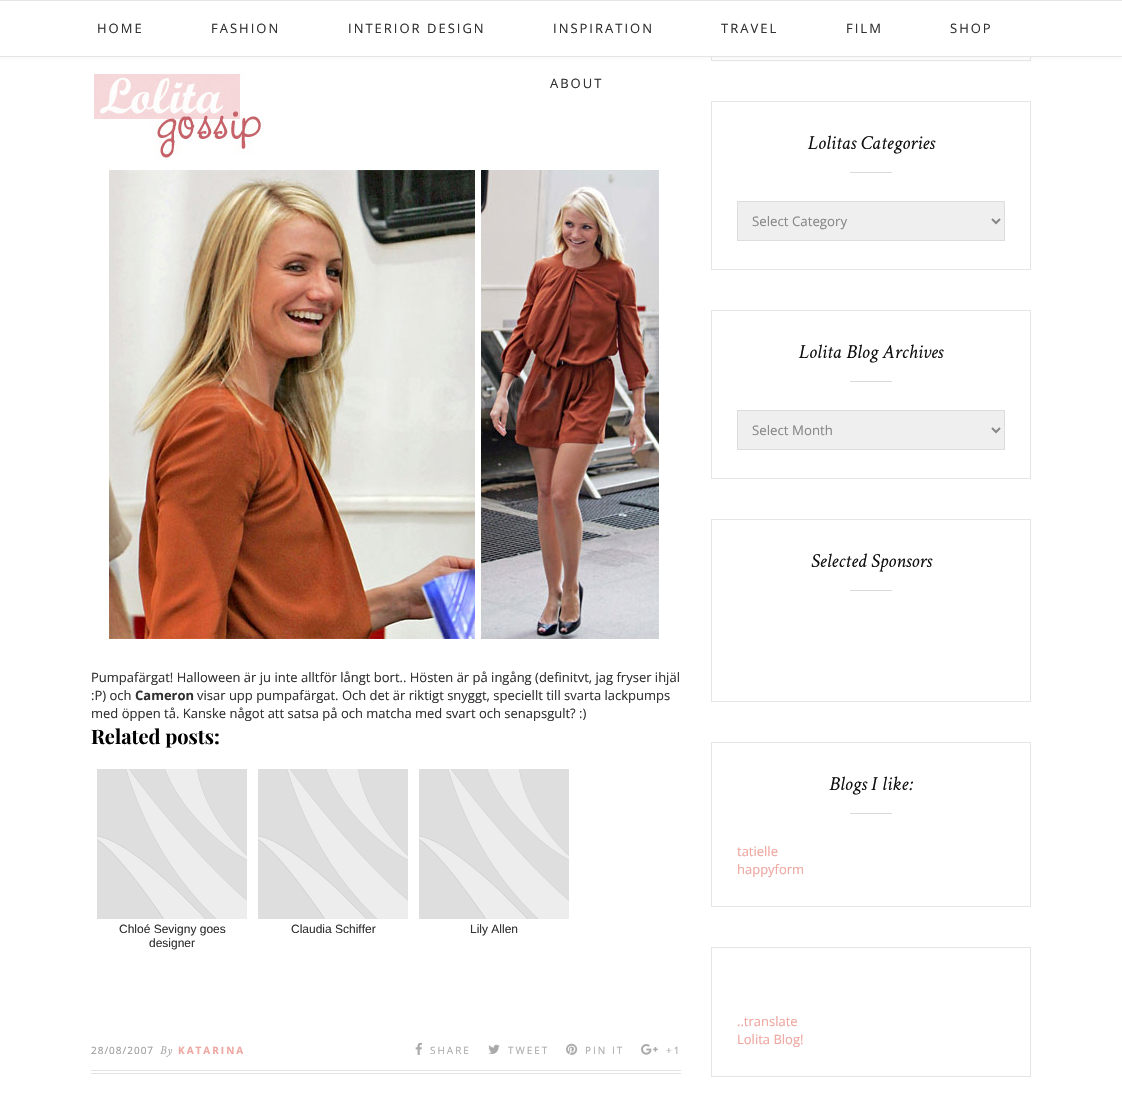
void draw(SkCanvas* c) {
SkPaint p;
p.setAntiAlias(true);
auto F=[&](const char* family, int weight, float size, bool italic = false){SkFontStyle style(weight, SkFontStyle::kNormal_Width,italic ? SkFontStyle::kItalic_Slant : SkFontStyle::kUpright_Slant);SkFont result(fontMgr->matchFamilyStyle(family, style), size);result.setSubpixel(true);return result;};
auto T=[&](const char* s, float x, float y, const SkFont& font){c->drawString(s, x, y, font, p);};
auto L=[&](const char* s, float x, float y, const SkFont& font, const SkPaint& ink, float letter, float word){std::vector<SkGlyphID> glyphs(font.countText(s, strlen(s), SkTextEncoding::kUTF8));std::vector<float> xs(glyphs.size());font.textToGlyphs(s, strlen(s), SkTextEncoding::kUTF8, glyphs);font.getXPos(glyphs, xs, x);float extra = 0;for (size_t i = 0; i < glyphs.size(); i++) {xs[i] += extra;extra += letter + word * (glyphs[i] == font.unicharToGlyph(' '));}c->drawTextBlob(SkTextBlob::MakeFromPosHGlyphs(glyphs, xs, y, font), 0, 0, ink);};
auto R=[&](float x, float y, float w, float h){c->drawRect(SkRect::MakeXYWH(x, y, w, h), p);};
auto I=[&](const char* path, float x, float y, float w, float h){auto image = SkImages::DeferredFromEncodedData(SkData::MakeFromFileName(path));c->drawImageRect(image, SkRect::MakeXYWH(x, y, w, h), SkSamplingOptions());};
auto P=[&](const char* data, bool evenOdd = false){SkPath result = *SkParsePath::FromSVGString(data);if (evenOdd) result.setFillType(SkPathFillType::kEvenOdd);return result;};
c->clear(0xffffffff);
p.setStroke(true);
p.setStrokeWidth(1);
p.setColor(0xffe5e5e5);
c->drawRect(SkRect::MakeXYWH(711.5,-.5,319,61),p);
p.setStroke(false);
p.setColor(0x29bebebe);
p.setMaskFilter(SkMaskFilter::MakeBlur(kNormal_SkBlurStyle, 2.5));
c->drawRect(SkRect::MakeXYWH(0,1,1122,57),p);
p.setMaskFilter(nullptr);
p.setColor(0xffffffff);
R(0,1,1122,55);
p.setColor(0xffe5e5e5);
R(0,0,1122,1);
R(0,56,1122,1);
auto f1 = F("Open Sans",400,13);
p.setColor(0xff313131);
L("HOME",97,33,f1,p,2,0);
L("FASHION",211,33,f1,p,2,0);
L("INTERIOR DESIGN",348,33,f1,p,2,0);
L("INSPIRATION",553,33,f1,p,2,0);
L("TRAVEL",721,33,f1,p,2,0);
L("FILM",846,33,f1,p,2,0);
L("SHOP",950,33,f1,p,2,0);
I("1.png",94,72,565,570);
L("ABOUT",550,88,f1,p,2,0);
T("Pumpafärgat! Halloween är ju inte alltför långt bort.. Hösten är på ingång (definitvt, jag fryser ihjäl",91,682,f1);
T(":P) och",91,700,f1);
auto f2 = F("Open Sans",700,13);
T("Cameron",135,700,f2);
T("visar upp pumpafärgat. Och det är riktigt snyggt, speciellt till svarta lackpumps",197,700,f1);
T("med öppen tå. Kanske något att satsa på och matcha med svart och senapsgult? :)",91,718,f1);
auto f3 = F("Playfair Display",700,20);
p.setColor(0xff000000);
T("Related posts:",91,744,f3);
I("2.png",97,769,150,150);
auto f4 = F("Liberation Sans",400,12);
p.setColor(0xff313131);
T("Chloé Sevigny goes",119,933,f4);
T("designer",149,947,f4);
I("2.png",258,769,150,150);
T("Claudia Schiffer",291,933,f4);
I("2.png",419,769,150,150);
T("Lily Allen",470,933,f4);
p.setColor(0xffe2e2e2);
R(91,1070,590,1);
R(91,1073,590,1);
auto f5 = F("Open Sans",400,10);
p.setColor(0xff999999);
L("28/08/2007",91,1054,f5,p,1,0);
auto f6 = F("Crimson Text",400,12,true);
p.setColor(0xffaaaaaa);
T("By",160,1054,f6);
auto f7 = F("Open Sans",700,10);
p.setColor(0xffefa7a1);
L("KATARINA",178,1054,f7,p,2,0);
I("3.png",415,1042,7,13);
p.setColor(0xffaaaaaa);
L("SHARE",430,1054,f5,p,2,0);
I("4.png",488,1044,12,10);
L("TWEET",508,1054,f5,p,2,0);
I("5.png",566,1043,12,12);
L("PIN IT",585,1054,f5,p,2,0);
I("6.png",641,1044,17,11);
L("+1",666,1054,f5,p,2,0);
p.setStroke(true);
p.setColor(0xffe5e5e5);
c->drawRect(SkRect::MakeXYWH(711.5,101.5,319,168),p);
auto f8 = F("Crimson Text",400,20,true);
p.setStroke(false);
p.setColor(0xff111111);
T("Lolitas Categories",808,149,f8);
p.setColor(0xffd9d9d9);
R(850,172,42,1);
p.setColor(0xffefefef);
c->drawRect(SkRect::MakeXYWH(737.5,201.5,267,39),p);
p.setStroke(true);
p.setColor(0xffdddddd);
c->drawRect(SkRect::MakeXYWH(737.5,201.5,267,39),p);
p.setStrokeWidth(2);
p.setColor(0xff888888);
c->drawPath(P("M992 219l4 4l4-4"),p);
auto f9 = F("Open Sans",400,13.25);
p.setStroke(false);
T("Select Category",752,226,f9);
p.setStroke(true);
p.setStrokeWidth(1);
p.setColor(0xffe5e5e5);
c->drawRect(SkRect::MakeXYWH(711.5,310.5,319,168),p);
p.setStroke(false);
p.setColor(0xff111111);
T("Lolita Blog Archives",799,358,f8);
p.setColor(0xffd9d9d9);
R(850,381,42,1);
p.setColor(0xffefefef);
c->drawRect(SkRect::MakeXYWH(737.5,410.5,267,39),p);
p.setStroke(true);
p.setColor(0xffdddddd);
c->drawRect(SkRect::MakeXYWH(737.5,410.5,267,39),p);
p.setStrokeWidth(2);
p.setColor(0xff888888);
c->drawPath(P("M992 428l4 4l4-4"),p);
p.setStroke(false);
T("Select Month",752,435,f9);
p.setStroke(true);
p.setStrokeWidth(1);
p.setColor(0xffe5e5e5);
c->drawRect(SkRect::MakeXYWH(711.5,519.5,319,182),p);
p.setStroke(false);
p.setColor(0xff111111);
T("Selected Sponsors",811,567,f8);
p.setColor(0xffd9d9d9);
R(850,590,42,1);
p.setStroke(true);
p.setColor(0xffe5e5e5);
c->drawRect(SkRect::MakeXYWH(711.5,742.5,319,164),p);
p.setStroke(false);
p.setColor(0xff111111);
T("Blogs I like:",829,790,f8);
p.setColor(0xffd9d9d9);
R(850,813,42,1);
p.setColor(0xffefa7a1);
T("tatielle",737,856,f1);
T("happyform",737,874,f1);
p.setStroke(true);
p.setColor(0xffe5e5e5);
c->drawRect(SkRect::MakeXYWH(711.5,947.5,319,129),p);
p.setStroke(false);
p.setColor(0xffefa7a1);
T("..translate",737,1026,f1);
T("Lolita Blog!",737,1044,f1);
}
